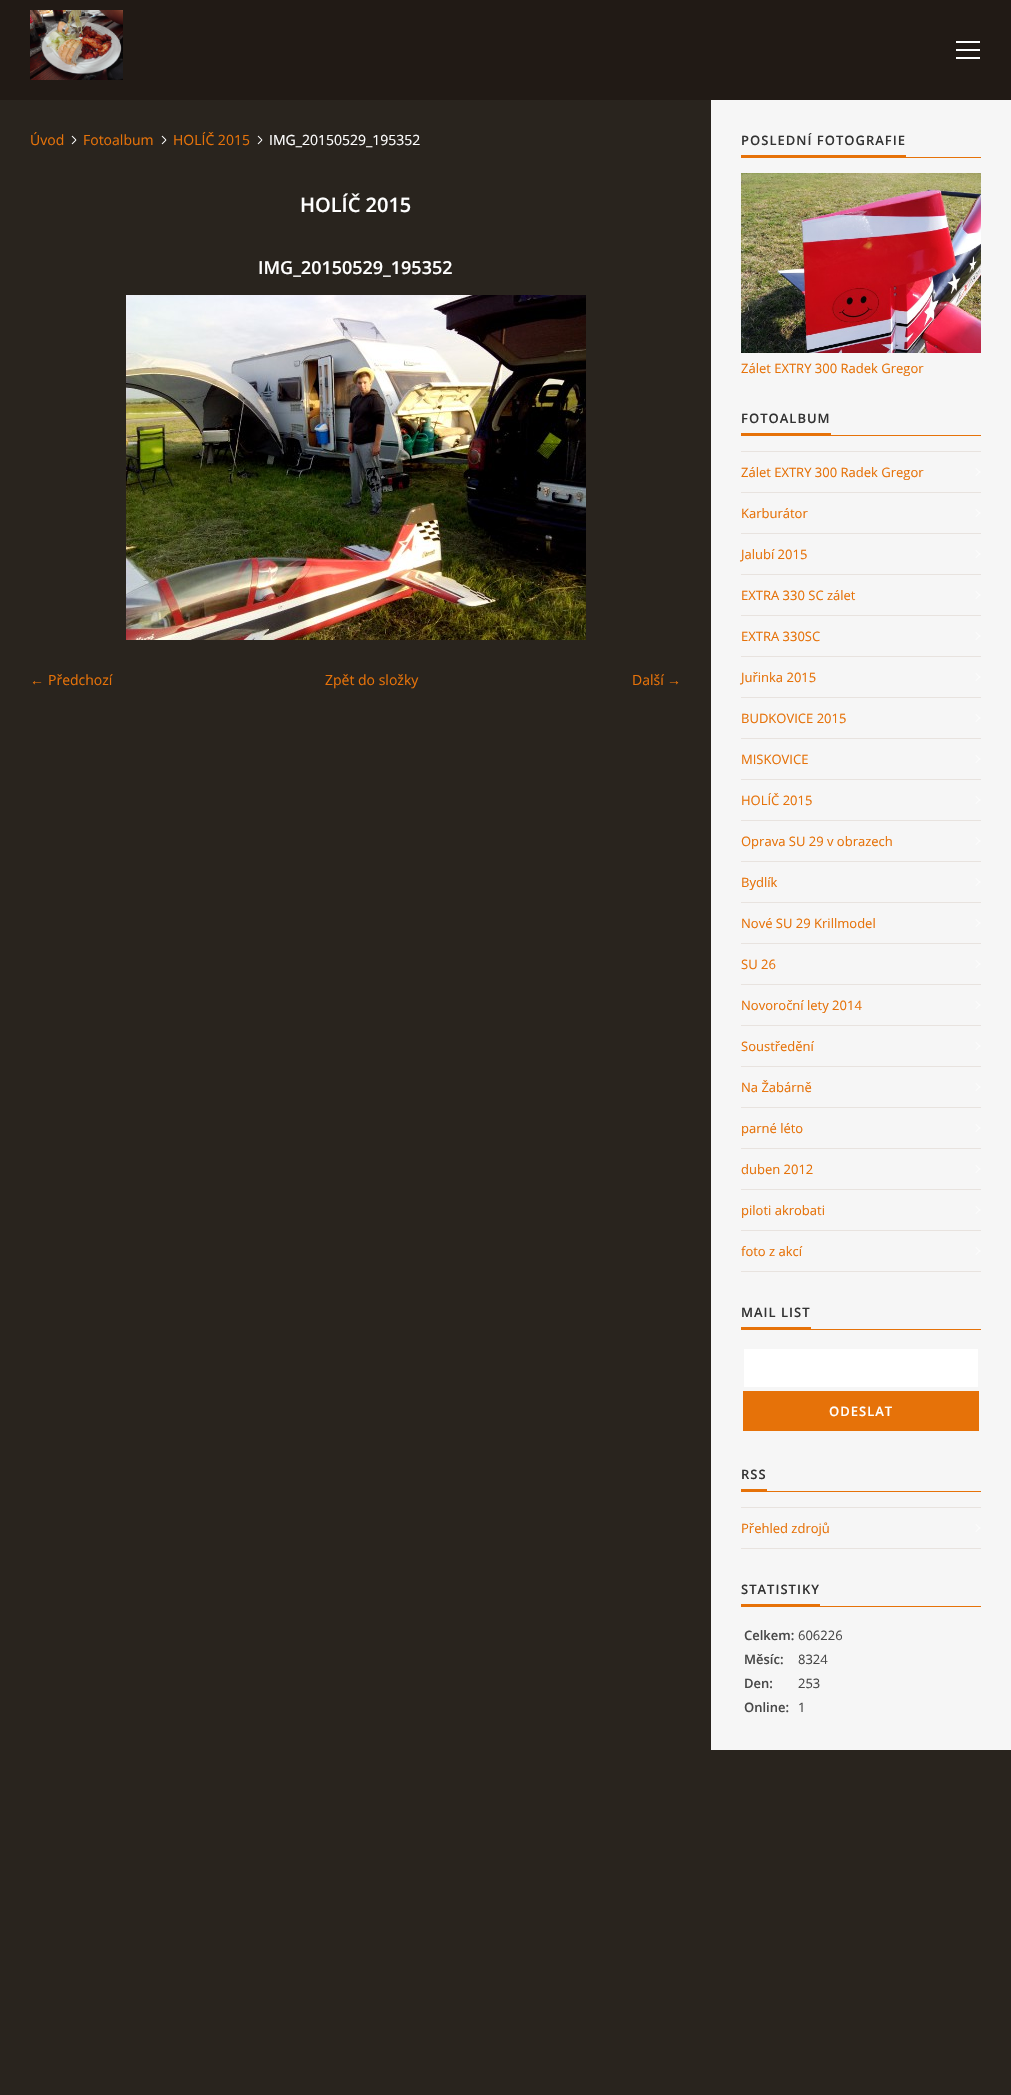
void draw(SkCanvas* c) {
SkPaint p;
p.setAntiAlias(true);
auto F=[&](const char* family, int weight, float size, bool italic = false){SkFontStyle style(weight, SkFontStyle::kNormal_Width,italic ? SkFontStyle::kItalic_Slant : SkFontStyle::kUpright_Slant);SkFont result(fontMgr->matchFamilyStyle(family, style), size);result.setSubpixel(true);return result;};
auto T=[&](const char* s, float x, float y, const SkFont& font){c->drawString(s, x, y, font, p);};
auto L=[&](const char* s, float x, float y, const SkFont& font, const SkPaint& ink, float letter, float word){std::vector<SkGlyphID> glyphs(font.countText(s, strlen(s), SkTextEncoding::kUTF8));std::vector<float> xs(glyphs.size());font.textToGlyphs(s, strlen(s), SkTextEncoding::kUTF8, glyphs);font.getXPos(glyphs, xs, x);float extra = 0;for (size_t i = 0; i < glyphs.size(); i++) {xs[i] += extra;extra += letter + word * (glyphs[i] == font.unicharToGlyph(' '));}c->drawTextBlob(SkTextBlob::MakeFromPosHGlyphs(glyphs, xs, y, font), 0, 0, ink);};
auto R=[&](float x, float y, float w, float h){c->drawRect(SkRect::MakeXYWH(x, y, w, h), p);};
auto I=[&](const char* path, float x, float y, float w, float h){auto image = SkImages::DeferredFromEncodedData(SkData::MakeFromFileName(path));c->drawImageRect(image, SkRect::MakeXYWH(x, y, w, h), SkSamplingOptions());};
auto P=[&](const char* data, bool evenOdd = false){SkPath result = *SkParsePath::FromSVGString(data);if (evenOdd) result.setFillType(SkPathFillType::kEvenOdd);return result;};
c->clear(0xff29241e);
p.setColor(0xff211a15);
R(0,0,1011,100);
I("1.png",30,10,93,70);
I("2.png",956,41,24,18);
I("3.png",71,135,6,10);
auto f1 = F("Open Sans",400,14);
p.setColor(0xffe67209);
T("Úvod",30,145,f1);
I("3.png",161,135,6,10);
T("Fotoalbum",83,145,f1);
I("3.png",257,135,6,10);
T("HOLÍČ 2015",173,145,f1);
p.setColor(0xffffffff);
T("IMG_20150529_195352",269,145,f1);
auto f2 = F("Open Sans",600,20);
T("HOLÍČ 2015",300,212,f2);
auto f3 = F("Open Sans",600,18);
T("IMG_20150529_195352",258,274,f3);
I("4.png",126,295,460,345);
auto f4 = F("Liberation Serif",400,14);
p.setColor(0xffe67209);
T("←",30,685,f4);
T("Předchozí",48,685,f1);
T("Zpět do složky",325,685,f1);
T("Další",632,685,f1);
T("→",667,685,f4);
p.setColor(0xfff6f6f6);
R(711,100,300,1650);
auto f5 = F("Open Sans",600,13);
p.setColor(0xff333333);
L("POSLEDNÍ FOTOGRAFIE",741,145,f5,p,1,0);
p.setColor(0xffe67209);
R(741,155,165,2);
R(741,157,240,1);
I("5.png",741,173,240,180);
auto f6 = F("Open Sans",400,13);
T("Zálet EXTRY 300 Radek Gregor",741,373,f6);
p.setColor(0xff333333);
L("FOTOALBUM",741,423,f5,p,1,0);
p.setColor(0xffe67209);
R(741,433,90,2);
R(741,435,240,1);
p.setColor(0xffe8e3df);
R(741,451,240,1);
R(741,492,240,1);
p.setColor(0xffe67209);
T("Zálet EXTRY 300 Radek Gregor",741,477,f6);
p.setColor(0xffffffff);
c->drawPath(P("M976 468l4.5 4.5l-.5 .5l-4.5-4.5z"),p);
c->drawPath(P("M975.5 475.5l4.5-4.5l.5 .5l-4.5 4.5z"),p);
p.setColor(0xffe8e3df);
R(741,533,240,1);
p.setColor(0xffe67209);
T("Karburátor",741,518,f6);
p.setColor(0xffffffff);
c->drawPath(P("M976 509l4.5 4.5l-.5 .5l-4.5-4.5z"),p);
c->drawPath(P("M975.5 516.5l4.5-4.5l.5 .5l-4.5 4.5z"),p);
p.setColor(0xffe8e3df);
R(741,574,240,1);
p.setColor(0xffe67209);
T("Jalubí 2015",741,559,f6);
p.setColor(0xffffffff);
c->drawPath(P("M976 550l4.5 4.5l-.5 .5l-4.5-4.5z"),p);
c->drawPath(P("M975.5 557.5l4.5-4.5l.5 .5l-4.5 4.5z"),p);
p.setColor(0xffe8e3df);
R(741,615,240,1);
p.setColor(0xffe67209);
T("EXTRA 330 SC zálet",741,600,f6);
p.setColor(0xffffffff);
c->drawPath(P("M976 591l4.5 4.5l-.5 .5l-4.5-4.5z"),p);
c->drawPath(P("M975.5 598.5l4.5-4.5l.5 .5l-4.5 4.5z"),p);
p.setColor(0xffe8e3df);
R(741,656,240,1);
p.setColor(0xffe67209);
T("EXTRA 330SC",741,641,f6);
p.setColor(0xffffffff);
c->drawPath(P("M976 632l4.5 4.5l-.5 .5l-4.5-4.5z"),p);
c->drawPath(P("M975.5 639.5l4.5-4.5l.5 .5l-4.5 4.5z"),p);
p.setColor(0xffe8e3df);
R(741,697,240,1);
p.setColor(0xffe67209);
T("Juřinka 2015",741,682,f6);
p.setColor(0xffffffff);
c->drawPath(P("M976 673l4.5 4.5l-.5 .5l-4.5-4.5z"),p);
c->drawPath(P("M975.5 680.5l4.5-4.5l.5 .5l-4.5 4.5z"),p);
p.setColor(0xffe8e3df);
R(741,738,240,1);
p.setColor(0xffe67209);
T("BUDKOVICE 2015",741,723,f6);
p.setColor(0xffffffff);
c->drawPath(P("M976 714l4.5 4.5l-.5 .5l-4.5-4.5z"),p);
c->drawPath(P("M975.5 721.5l4.5-4.5l.5 .5l-4.5 4.5z"),p);
p.setColor(0xffe8e3df);
R(741,779,240,1);
p.setColor(0xffe67209);
T("MISKOVICE",741,764,f6);
p.setColor(0xffffffff);
c->drawPath(P("M976 755l4.5 4.5l-.5 .5l-4.5-4.5z"),p);
c->drawPath(P("M975.5 762.5l4.5-4.5l.5 .5l-4.5 4.5z"),p);
p.setColor(0xffe8e3df);
R(741,820,240,1);
p.setColor(0xffe67209);
T("HOLÍČ 2015",741,805,f6);
p.setColor(0xffffffff);
c->drawPath(P("M976 796l4.5 4.5l-.5 .5l-4.5-4.5z"),p);
c->drawPath(P("M975.5 803.5l4.5-4.5l.5 .5l-4.5 4.5z"),p);
p.setColor(0xffe8e3df);
R(741,861,240,1);
p.setColor(0xffe67209);
T("Oprava SU 29 v obrazech",741,846,f6);
p.setColor(0xffffffff);
c->drawPath(P("M976 837l4.5 4.5l-.5 .5l-4.5-4.5z"),p);
c->drawPath(P("M975.5 844.5l4.5-4.5l.5 .5l-4.5 4.5z"),p);
p.setColor(0xffe8e3df);
R(741,902,240,1);
p.setColor(0xffe67209);
T("Bydlík",741,887,f6);
p.setColor(0xffffffff);
c->drawPath(P("M976 878l4.5 4.5l-.5 .5l-4.5-4.5z"),p);
c->drawPath(P("M975.5 885.5l4.5-4.5l.5 .5l-4.5 4.5z"),p);
p.setColor(0xffe8e3df);
R(741,943,240,1);
p.setColor(0xffe67209);
T("Nové SU 29 Krillmodel",741,928,f6);
p.setColor(0xffffffff);
c->drawPath(P("M976 919l4.5 4.5l-.5 .5l-4.5-4.5z"),p);
c->drawPath(P("M975.5 926.5l4.5-4.5l.5 .5l-4.5 4.5z"),p);
p.setColor(0xffe8e3df);
R(741,984,240,1);
p.setColor(0xffe67209);
T("SU 26",741,969,f6);
p.setColor(0xffffffff);
c->drawPath(P("M976 960l4.5 4.5l-.5 .5l-4.5-4.5z"),p);
c->drawPath(P("M975.5 967.5l4.5-4.5l.5 .5l-4.5 4.5z"),p);
p.setColor(0xffe8e3df);
R(741,1025,240,1);
p.setColor(0xffe67209);
T("Novoroční lety 2014",741,1010,f6);
p.setColor(0xffffffff);
c->drawPath(P("M976 1001l4.5 4.5l-.5 .5l-4.5-4.5z"),p);
c->drawPath(P("M975.5 1008.5l4.5-4.5l.5 .5l-4.5 4.5z"),p);
p.setColor(0xffe8e3df);
R(741,1066,240,1);
p.setColor(0xffe67209);
T("Soustředění",741,1051,f6);
p.setColor(0xffffffff);
c->drawPath(P("M976 1042l4.5 4.5l-.5 .5l-4.5-4.5z"),p);
c->drawPath(P("M975.5 1049.5l4.5-4.5l.5 .5l-4.5 4.5z"),p);
p.setColor(0xffe8e3df);
R(741,1107,240,1);
p.setColor(0xffe67209);
T("Na Žabárně",741,1092,f6);
p.setColor(0xffffffff);
c->drawPath(P("M976 1083l4.5 4.5l-.5 .5l-4.5-4.5z"),p);
c->drawPath(P("M975.5 1090.5l4.5-4.5l.5 .5l-4.5 4.5z"),p);
p.setColor(0xffe8e3df);
R(741,1148,240,1);
p.setColor(0xffe67209);
T("parné léto",741,1133,f6);
p.setColor(0xffffffff);
c->drawPath(P("M976 1124l4.5 4.5l-.5 .5l-4.5-4.5z"),p);
c->drawPath(P("M975.5 1131.5l4.5-4.5l.5 .5l-4.5 4.5z"),p);
p.setColor(0xffe8e3df);
R(741,1189,240,1);
p.setColor(0xffe67209);
T("duben 2012",741,1174,f6);
p.setColor(0xffffffff);
c->drawPath(P("M976 1165l4.5 4.5l-.5 .5l-4.5-4.5z"),p);
c->drawPath(P("M975.5 1172.5l4.5-4.5l.5 .5l-4.5 4.5z"),p);
p.setColor(0xffe8e3df);
R(741,1230,240,1);
p.setColor(0xffe67209);
T("piloti akrobati",741,1215,f6);
p.setColor(0xffffffff);
c->drawPath(P("M976 1206l4.5 4.5l-.5 .5l-4.5-4.5z"),p);
c->drawPath(P("M975.5 1213.5l4.5-4.5l.5 .5l-4.5 4.5z"),p);
p.setColor(0xffe8e3df);
R(741,1271,240,1);
p.setColor(0xffe67209);
T("foto z akcí",741,1256,f6);
p.setColor(0xffffffff);
c->drawPath(P("M976 1247l4.5 4.5l-.5 .5l-4.5-4.5z"),p);
c->drawPath(P("M975.5 1254.5l4.5-4.5l.5 .5l-4.5 4.5z"),p);
p.setColor(0xff333333);
L("MAIL LIST",741,1317,f5,p,1,0);
p.setColor(0xffe67209);
R(741,1327,70,2);
R(741,1329,240,1);
p.setColor(0xffffffff);
R(744,1349,234,38);
p.setColor(0xffe67209);
R(743,1391,236,40);
p.setColor(0xffffffff);
L("ODESLAT",829,1416,f5,p,1,0);
p.setColor(0xff333333);
L("RSS",741,1479,f5,p,1,0);
p.setColor(0xffe67209);
R(741,1489,26,2);
R(741,1491,240,1);
p.setColor(0xffe8e3df);
R(741,1507,240,1);
R(741,1548,240,1);
p.setColor(0xffe67209);
T("Přehled zdrojů",741,1533,f6);
p.setColor(0xffffffff);
c->drawPath(P("M976 1524l4.5 4.5l-.5 .5l-4.5-4.5z"),p);
c->drawPath(P("M975.5 1531.5l4.5-4.5l.5 .5l-4.5 4.5z"),p);
p.setColor(0xff333333);
L("STATISTIKY",741,1594,f5,p,1,0);
p.setColor(0xffe67209);
R(741,1604,79,2);
R(741,1606,240,1);
p.setColor(0xff484848);
T("Celkem:",744,1640,f5);
T("606226",798,1640,f6);
T("Měsíc:",744,1664,f5);
T("8324",798,1664,f6);
T("Den:",744,1688,f5);
T("253",798,1688,f6);
T("Online:",744,1712,f5);
T("1",798,1712,f6);
}
